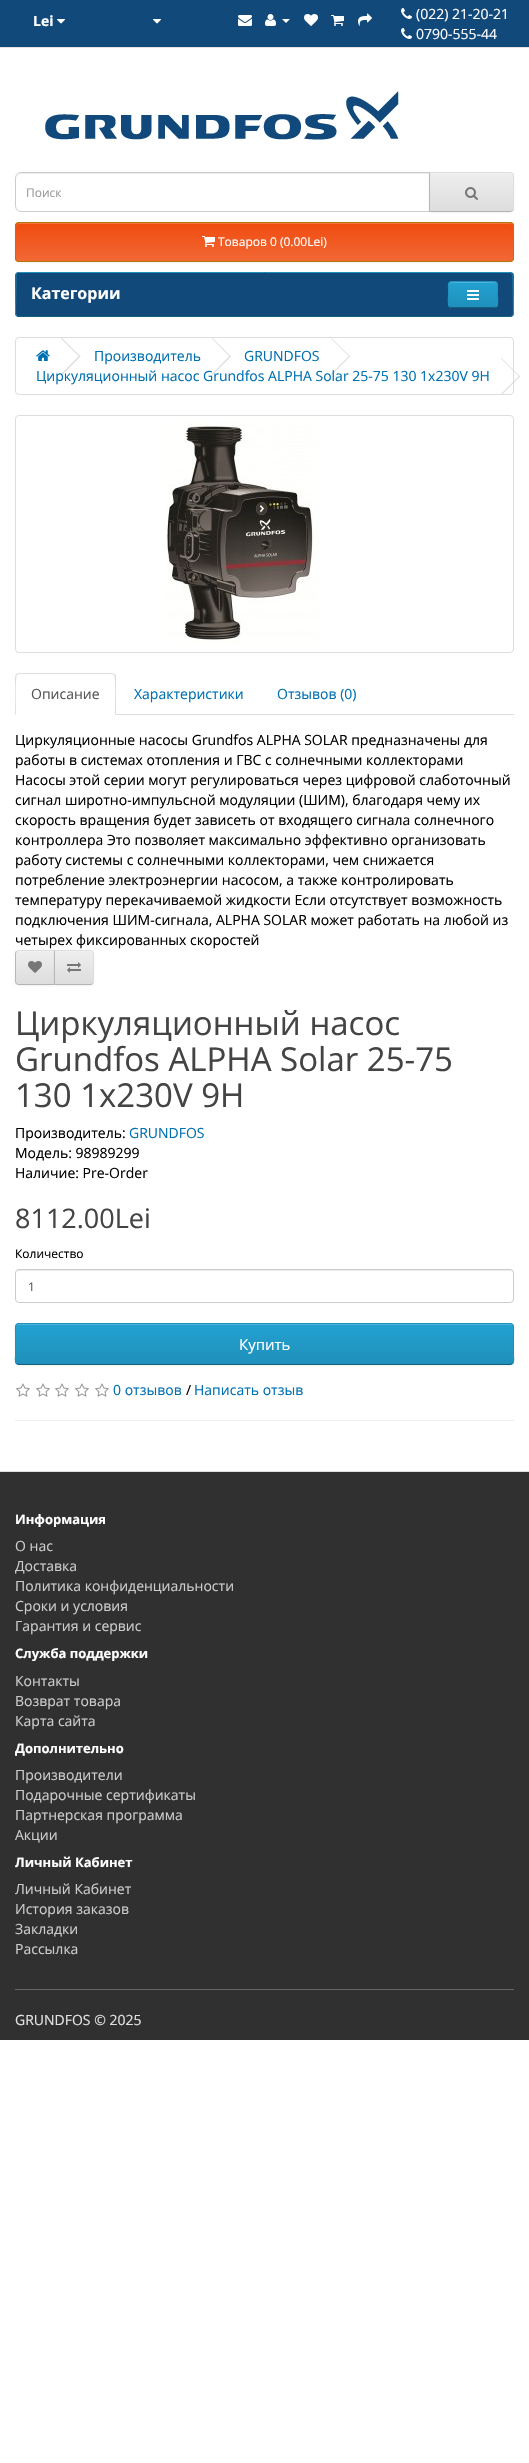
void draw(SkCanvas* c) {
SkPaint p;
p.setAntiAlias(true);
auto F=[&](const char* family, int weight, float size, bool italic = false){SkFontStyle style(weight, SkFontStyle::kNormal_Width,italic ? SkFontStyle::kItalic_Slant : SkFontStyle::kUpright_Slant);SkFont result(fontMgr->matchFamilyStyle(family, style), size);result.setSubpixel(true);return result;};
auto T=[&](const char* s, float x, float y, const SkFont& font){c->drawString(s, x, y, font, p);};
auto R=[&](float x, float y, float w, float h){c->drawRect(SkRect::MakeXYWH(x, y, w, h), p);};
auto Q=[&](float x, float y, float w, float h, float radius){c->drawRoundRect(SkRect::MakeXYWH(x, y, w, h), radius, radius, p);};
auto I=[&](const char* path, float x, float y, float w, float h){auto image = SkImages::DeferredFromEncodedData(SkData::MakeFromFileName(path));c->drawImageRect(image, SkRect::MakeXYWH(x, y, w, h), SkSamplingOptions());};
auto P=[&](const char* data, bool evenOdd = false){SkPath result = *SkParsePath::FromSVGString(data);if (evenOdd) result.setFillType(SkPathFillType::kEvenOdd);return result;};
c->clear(0xffffffff);
p.setColor(0xff11497b);
R(0,0,529,47);
p.setColor(0xffe2e2e2);
R(0,47,529,1);
auto f1 = F("Open Sans",700,14);
p.setColor(0xffffffff);
T("Lei",33,26,f1);
I("1.png",57,19,8,5);
I("1.png",153,19,8,5);
I("2.png",238,15,14,11);
I("3.png",265,14,11,12);
c->drawPath(P("M282 19h8l-4 4z"),p);
I("4.png",304,14,14,12);
I("5.png",331,15,13,11);
I("6.png",358,13,14,13);
I("7.png",401,8,11,11);
auto f2 = F("Open Sans",400,14);
T("(022) 21-20-21",416,19,f2);
I("7.png",401,28,11,11);
T("0790-555-44",416,39,f2);
I("8.png",45,91,354,49);
p.setColor(0xffececec);
c->drawPath(P("M21 174h408v-1h-408c-3 0-5 3-5 6c0-3 2-5 5-5z"),p);
p.setStroke(true);
p.setStrokeWidth(1);
p.setColor(0xffcccccc);
c->drawPath(P("M21 172.5h408.5v39h-408.5c-3 0-5.5-2.5-5.5-5.5v-28c0-3 2.5-5.5 5.5-5.5z"),p);
auto f3 = F("Open Sans",400,12);
p.setStroke(false);
p.setColor(0xff999999);
T("Поиск",26,197,f3);
p.setColor(0x0d000000);
p.setMaskFilter(SkMaskFilter::MakeBlur(kNormal_SkBlurStyle, 1));
c->drawRoundRect(SkRect::MakeXYWH(429,173,85,40),4,4,p);
p.setMaskFilter(nullptr);
p.setColor(0xffe7e7e7);
c->drawPath(P("M429 172h81c2 0 4 2 4 4v32c0 2-2 4-4 4h-81z"),p);
c->save();
c->clipPath(P("M429 172h81c2 0 4 2 4 4v32c0 2-2 4-4 4h-81z"),true);
{
const SkColor colors[] = {0xffeeeeee,0xffdddddd};
const float stops[] = {0,1};
const SkPoint ends[] = {{472,173}, {472,211}};
p.setShader(SkGradientShader::MakeLinear(ends, colors, stops, 2, SkTileMode::kClamp));
p.setAlpha(255);
}
R(430,173,84,38);
c->restore();
p.setShader(nullptr);
p.setColor(0xfff1f1f1);
c->drawPath(P("M430 174h80c2 0 3 1 3 3v-1c0-2-1-3-3-3h-80z"),p);
p.setColor(0xffdddddd);
c->drawPath(P("M429 172l1 1h81l1 1l1-1l-3-1z"),p);
c->drawPath(P("M514 208v-32c0-1-.5-2-1-3l-1 1c1 0 1 1 1 2v32c0 1 0 2-1 2l1 1c.5-1 1-2 1-3z"),p);
p.setColor(0xffb3b3b3);
c->drawPath(P("M510 212l3-1l-1-1l-1 1h-81l-1 1z"),p);
p.setColor(0xffb7b7b7);
c->drawPath(P("M429 172v40l1-1v-38z"),p);
I("9.png",465,187,13,13);
p.setColor(0x0d000000);
p.setMaskFilter(SkMaskFilter::MakeBlur(kNormal_SkBlurStyle, 1));
c->drawRoundRect(SkRect::MakeXYWH(15,223,499,40),4,4,p);
p.setMaskFilter(nullptr);
p.setColor(0xfff15a22);
Q(15,222,499,40,4);
c->save();
c->clipPath(P("M19 222h491c2 0 4 2 4 4v32c0 2-2 4-4 4h-491c-2 0-4-2-4-4v-32c0-2 2-4 4-4z"),true);
{
const SkColor colors[] = {0xfff04c10,0xfff26834};
const float stops[] = {0,1};
const SkPoint ends[] = {{265,223}, {265,261}};
p.setShader(SkGradientShader::MakeLinear(ends, colors, stops, 2, SkTileMode::kClamp));
p.setAlpha(255);
}
R(15,223,499,38);
c->restore();
p.setShader(nullptr);
p.setColor(0xfff37040);
c->drawPath(P("M19 224h491c2 0 3 1 3 3c0-2-1-4-3-4h-491c-2 0-3 2-3 4c0-2 1-3 3-3z"),p);
p.setStroke(true);
p.setColor(0xffb17a03);
c->drawPath(P("M512.5 260.5l-2.5 1h-491l-2.5-1"),p);
p.setColor(0xffb57703);
c->drawPath(P("M16.5 260.5c-.5-.5-1-1.5-1-2.5v-32c0-1 .5-2 1-2.5c.5-.5 1.5-1 2.5-1h491c1 0 2 .5 2.5 1c.5 .5 1 1.5 1 2.5v32c0 1-.5 2-1 2.5"),p);
I("10.png",202,236,13,11);
p.setStroke(false);
p.setColor(0xffffffff);
T("Товаров 0 (0.00Lei)",218,246,f3);
p.setColor(0xff11497b);
Q(15,272,499,45,4);
p.setStroke(true);
p.setColor(0xff145e7a);
c->drawPath(P("M512.5 315.5l-2.5 1h-491l-2.5-1"),p);
p.setColor(0xff1f90bb);
c->drawPath(P("M16.5 315.5l-1-2l.5-39l.5-.5l2-1.5h246h246l2 1.5l.5 .5l.5 39l-1 2"),p);
auto f4 = F("Open Sans",700,16);
p.setStroke(false);
p.setColor(0xffffffff);
T("Категории",31,299,f4);
p.setColor(0xff229ac8);
Q(448,281,50,27,4);
c->save();
c->clipPath(P("M452 281h42c2 0 4 2 4 4v19c0 2-2 4-4 4h-42c-2 0-4-2-4-4v-19c0-2 2-4 4-4z"),true);
{
const SkColor colors[] = {0xff23a1d1,0xff1f90bb};
const float stops[] = {0,1};
const SkPoint ends[] = {{473,282}, {473,307}};
p.setShader(SkGradientShader::MakeLinear(ends, colors, stops, 2, SkTileMode::kClamp));
p.setAlpha(255);
}
R(448,282,50,25);
c->restore();
p.setShader(nullptr);
p.setColor(0xff4fb4da);
c->drawPath(P("M452 283h42c2 0 3 1 3 3c0-6-6-4-10-4h-28c-4 0-10-2-10 4c0-2 1-3 3-3z"),p);
p.setStroke(true);
p.setColor(0xff145e7a);
c->drawPath(P("M496.5 306.5c-.5 .5-1.5 1-2.5 1h-42c-1 0-2-.5-2.5-1"),p);
p.setColor(0xff1f90bb);
c->drawPath(P("M449.5 306.5c-2-2-1-9.5-1-12c0-13-2-13 10.5-13h28c12.5 0 10.5 0 10.5 13c0 2.5 1 10-1 12"),p);
I("11.png",467,290,12,10);
p.setColor(0xffdddddd);
c->drawRoundRect(SkRect::MakeXYWH(15.5,337.5,498,57),3.5,3.5,p);
I("12.png",36,350,14,11);
p.setStroke(false);
c->drawPath(P("M61 338.5l1-.5l18.5 18.5l-1 .5z"),p);
c->drawPath(P("M61 374l18.5-18.5l1 1l-18.5 18.5z"),p);
p.setColor(0xff0070b1);
T("Производитель",94,361,f2);
p.setColor(0xffdddddd);
c->drawPath(P("M212 338.5l.5-.5l18.5 18.5l-1 .5z"),p);
c->drawPath(P("M212 374l18-18.5l1 1l-18.5 18.5z"),p);
p.setColor(0xff0070b1);
T("GRUNDFOS",244,361,f2);
p.setColor(0xffdddddd);
c->drawPath(P("M331 338.5l.5-.5l18.5 18.5l-.5 .5z"),p);
c->drawPath(P("M331 374l18.5-18.5l.5 1l-18.5 18.5z"),p);
p.setColor(0xff0070b1);
T("Циркуляционный насос Grundfos ALPHA Solar 25-75 130 1x230V 9H",36,381,f2);
p.setColor(0xffdddddd);
c->drawPath(P("M501 358.5l.5-.5l18.5 18.5l-.5 .5z"),p);
c->drawPath(P("M501 394l18.5-18.5l.5 1l-18.5 18.5z"),p);
p.setStroke(true);
c->drawRoundRect(SkRect::MakeXYWH(15.5,415.5,498,237),3.5,3.5,p);
I("13.png",166,420,152,224);
p.setStroke(false);
R(116,714,398,1);
c->drawPath(P("M19 673l-3 1l1 1l2-1h93l2 1l1-1l-3-1z"),p);
c->drawPath(P("M116 715v-38c0-1 0-2-1-3l-1 1c2 2 1 34 1 39z"),p);
c->drawPath(P("M15 715l1-1c0-5-1-37 1-39l-1-1l-1 3z"),p);
p.setColor(0xff555555);
T("Описание",31,699,f2);
p.setColor(0xff0070b1);
T("Характеристики",134,699,f2);
T("Отзывов (0)",277,699,f2);
p.setColor(0xff000000);
T("Циркуляционные насосы Grundfos ALPHA SOLAR предназначены для",15,745,f2);
T("работы в системах отопления и ГВС с солнечными коллекторами",15,765,f2);
T("Насосы этой серии могут регулироваться через цифровой слаботочный",15,785,f2);
T("сигнал широтно-импульсной модуляции (ШИМ), благодаря чему их",15,805,f2);
T("скорость вращения будет зависеть от входящего сигнала солнечного",15,825,f2);
T("контроллера Это позволяет максимально эффективно организовать",15,845,f2);
T("работу системы с солнечными коллекторами, чем снижается",15,865,f2);
T("потребление электроэнергии насосом, а также контролировать",15,885,f2);
T("температуру перекачиваемой жидкости Если отсутствует возможность",15,905,f2);
T("подключения ШИМ-сигнала, ALPHA SOLAR может работать на любой из",15,925,f2);
T("четырех фиксированных скоростей",15,945,f2);
p.setColor(0x0d000000);
p.setMaskFilter(SkMaskFilter::MakeBlur(kNormal_SkBlurStyle, 1));
c->drawRoundRect(SkRect::MakeXYWH(15,951,40,35),4,4,p);
p.setMaskFilter(nullptr);
c->save();
c->clipPath(P("M19 950h36v35h-36c-2 0-4-2-4-4v-27c0-2 2-4 4-4z"),true);
{
const SkColor colors[] = {0xffeeeeee,0xffdddddd};
const float stops[] = {0,1};
const SkPoint ends[] = {{35,951}, {35,984}};
p.setShader(SkGradientShader::MakeLinear(ends, colors, stops, 2, SkTileMode::kClamp));
p.setAlpha(255);
}
R(15,951,39,33);
c->restore();
p.setShader(nullptr);
p.setColor(0xfff1f1f1);
c->drawPath(P("M19 952h35v-1h-35c-1.5 0-3 1.5-3 3v1c0-2 1-3 3-3z"),p);
p.setColor(0xffdddddd);
c->drawPath(P("M19 950c-1 0-2 .5-3 1l1 1c0-1 1-1 2-1h35l1-1z"),p);
p.setColor(0xffb3b3b3);
c->drawPath(P("M55 985l-1-1h-35c-1 0-2 0-2-1l-1 1c1 .5 2 1 3 1z"),p);
p.setColor(0xffb7b7b7);
c->drawPath(P("M15 954v27c0 1 .5 2 1 3l1-1c-1 0-1-1-1-2v-27c0-1 0-2 1-2l-1-1c-.5 1-1 2-1 3z"),p);
I("14.png",28,961,14,12);
p.setColor(0x0d000000);
p.setMaskFilter(SkMaskFilter::MakeBlur(kNormal_SkBlurStyle, 1));
c->drawRoundRect(SkRect::MakeXYWH(54,951,40,35),4,4,p);
p.setMaskFilter(nullptr);
c->save();
c->clipPath(P("M54 950h36c2 0 4 2 4 4v27c0 2-2 4-4 4h-36z"),true);
{
const SkColor colors[] = {0xffeeeeee,0xffdddddd};
const float stops[] = {0,1};
const SkPoint ends[] = {{74,951}, {74,984}};
p.setShader(SkGradientShader::MakeLinear(ends, colors, stops, 2, SkTileMode::kClamp));
p.setAlpha(255);
}
R(55,951,39,33);
c->restore();
p.setShader(nullptr);
p.setColor(0xfff1f1f1);
c->drawPath(P("M55 952h35c2 0 3 1 3 3v-1c0-1.5-1.5-3-3-3h-35z"),p);
p.setColor(0xffdddddd);
c->drawPath(P("M54 950l1 1h35c1 0 2 0 2 1l1-1c-1-.5-2-1-3-1z"),p);
c->drawPath(P("M94 981v-27c0-1-.5-2-1-3l-1 1c1 0 1 1 1 2v27c0 1 0 2-1 2l1 1c.5-1 1-2 1-3z"),p);
p.setColor(0xffb3b3b3);
c->drawPath(P("M90 985c1 0 2-.5 3-1l-1-1c0 1-1 1-2 1h-35l-1 1z"),p);
p.setColor(0xffb7b7b7);
c->drawPath(P("M54 950v35l1-1v-33z"),p);
I("15.png",67,962,14,11);
auto f5 = F("Open Sans",400,33);
p.setColor(0xff444444);
T("Циркуляционный насос",15,1035,f5);
T("Grundfos ALPHA Solar 25-75",15,1071,f5);
T("130 1x230V 9H",15,1107,f5);
p.setColor(0xff000000);
T("Производитель:",15,1138,f2);
p.setColor(0xff0070b1);
T("GRUNDFOS",129,1138,f2);
p.setColor(0xff000000);
T("Модель: 98989299",15,1158,f2);
T("Наличие: Pre-Order",15,1178,f2);
auto f6 = F("Open Sans",400,27);
p.setColor(0xff444444);
T("8112.00Lei",15,1228,f6);
p.setColor(0xff000000);
T("Количество",15,1258,f3);
p.setColor(0xffececec);
c->drawPath(P("M19 1271h491c2 0 3 1 3 3c0-2-1-4-3-4h-491c-2 0-3 2-3 4c0-2 1-3 3-3z"),p);
p.setStroke(true);
p.setColor(0xffcccccc);
c->drawRoundRect(SkRect::MakeXYWH(15.5,1269.5,498,33),3.5,3.5,p);
p.setStroke(false);
p.setColor(0xff555555);
T("1",28,1291,f3);
p.setColor(0x0d000000);
p.setMaskFilter(SkMaskFilter::MakeBlur(kNormal_SkBlurStyle, 1));
c->drawRoundRect(SkRect::MakeXYWH(15,1324,499,42),4,4,p);
p.setMaskFilter(nullptr);
p.setColor(0xff229ac8);
Q(15,1323,499,42,4);
c->save();
c->clipPath(P("M19 1323h491c2 0 4 2 4 4v34c0 2-2 4-4 4h-491c-2 0-4-2-4-4v-34c0-2 2-4 4-4z"),true);
{
const SkColor colors[] = {0xff23a1d1,0xff1f90bb};
const float stops[] = {0,1};
const SkPoint ends[] = {{265,1324}, {265,1364}};
p.setShader(SkGradientShader::MakeLinear(ends, colors, stops, 2, SkTileMode::kClamp));
p.setAlpha(255);
}
R(15,1324,499,40);
c->restore();
p.setShader(nullptr);
p.setColor(0xff4fb4da);
c->drawPath(P("M19 1325h491c2 0 3 1 3 3c0-2-1-4-3-4h-491c-2 0-3 2-3 4c0-2 1-3 3-3z"),p);
p.setStroke(true);
p.setColor(0xff145e7a);
c->drawPath(P("M512.5 1363.5l-2.5 1h-491l-2.5-1"),p);
p.setColor(0xff1f90bb);
c->drawPath(P("M16.5 1363.5c-2-2-1-6.5-1-8v-23c0-2.5-1-9 3.5-9h491c4.5 0 3.5 6.5 3.5 9v23c0 1.5 1 6-1 8"),p);
auto f7 = F("Open Sans",400,15);
p.setStroke(false);
p.setColor(0xffffffff);
T("Купить",239,1350,f7);
I("16.png",16,1383,14,14);
I("16.png",36,1383,14,14);
I("16.png",55,1383,14,14);
I("16.png",75,1383,14,14);
I("16.png",95,1383,14,14);
p.setColor(0xff0070b1);
T("0 отзывов",113,1395,f2);
p.setColor(0xff000000);
T("/",186,1395,f2);
p.setColor(0xff0070b1);
T("Написать отзыв",194,1395,f2);
p.setColor(0xffeeeeee);
R(15,1420,499,1);
p.setColor(0xff303030);
R(0,1472,529,568);
p.setColor(0xffdddddd);
R(0,1471,529,1);
auto f8 = F("Open Sans",700,13);
p.setColor(0xffffffff);
T("Информация",15,1524,f8);
p.setColor(0xffcccccc);
T("О нас",15,1551,f2);
T("Доставка",15,1571,f2);
T("Политика конфиденциальности",15,1591,f2);
T("Сроки и условия",15,1611,f2);
T("Гарантия и сервис",15,1631,f2);
p.setColor(0xffffffff);
T("Служба поддержки",15,1658,f8);
p.setColor(0xffcccccc);
T("Контакты",15,1686,f2);
T("Возврат товара",15,1706,f2);
T("Карта сайта",15,1726,f2);
p.setColor(0xffffffff);
T("Дополнительно",15,1753,f8);
p.setColor(0xffcccccc);
T("Производители",15,1780,f2);
T("Подарочные сертификаты",15,1800,f2);
T("Партнерская программа",15,1820,f2);
T("Акции",15,1840,f2);
p.setColor(0xffffffff);
T("Личный Кабинет",15,1867,f8);
p.setColor(0xffcccccc);
T("Личный Кабинет",15,1894,f2);
T("История заказов",15,1914,f2);
T("Закладки",15,1934,f2);
T("Рассылка",15,1954,f2);
p.setColor(0xff666666);
R(15,1989,499,1);
p.setColor(0xffe2e2e2);
T("GRUNDFOS © 2025",15,2025,f2);
}
